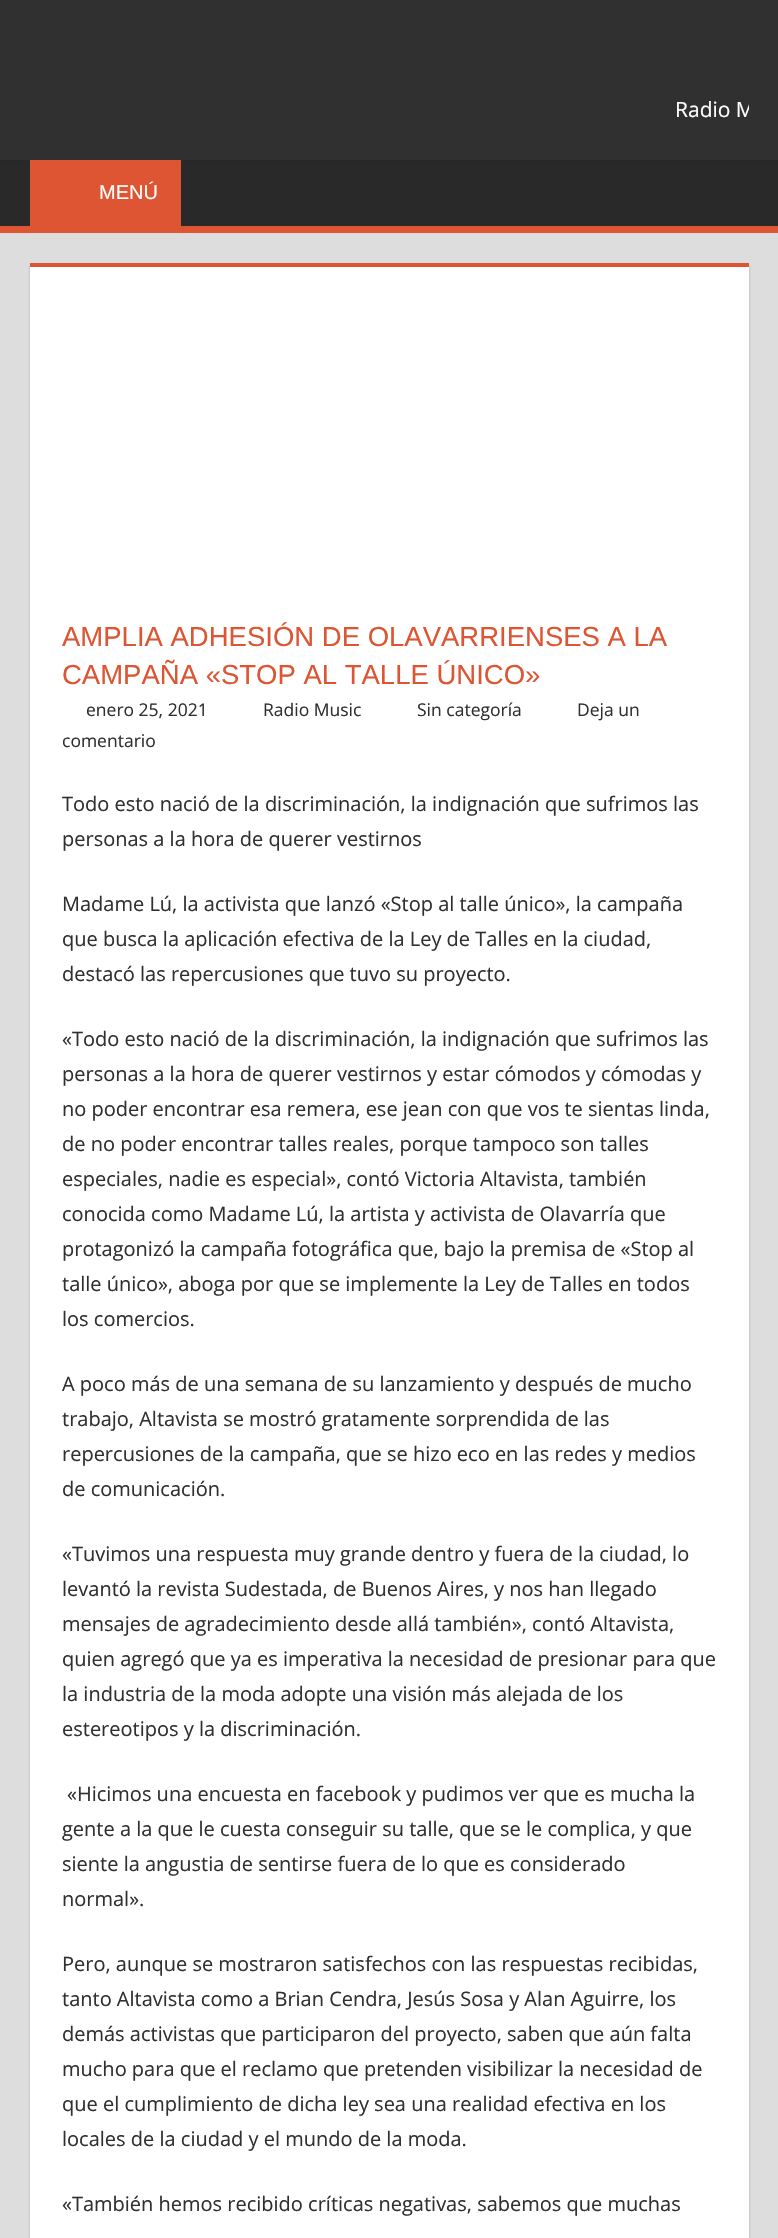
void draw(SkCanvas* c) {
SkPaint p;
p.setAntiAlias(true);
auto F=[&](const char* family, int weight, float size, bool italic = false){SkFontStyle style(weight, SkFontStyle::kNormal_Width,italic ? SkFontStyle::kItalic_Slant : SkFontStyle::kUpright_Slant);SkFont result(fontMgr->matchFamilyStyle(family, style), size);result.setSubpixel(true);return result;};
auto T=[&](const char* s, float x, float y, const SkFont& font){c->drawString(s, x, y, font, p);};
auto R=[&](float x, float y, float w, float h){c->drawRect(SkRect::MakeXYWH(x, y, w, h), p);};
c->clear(0xffdddddd);
p.setColor(0xff303030);
R(0,0,778,160);
c->save();
c->clipRect(SkRect::MakeXYWH(30,90,719,38));
auto f1 = F("Open Sans",400,21);
p.setColor(0xffffffff);
T("Radio M",675,117,f1);
c->restore();
p.setColor(0xff292929);
R(0,161,778,65);
p.setColor(0xff272727);
R(0,160,778,1);
p.setColor(0xffdd5533);
R(0,226,778,7);
R(30,160,151,66);
auto f2 = F("Liberation Sans",400,20);
p.setColor(0xffffffff);
T("MENÚ",99,199,f2);
p.setColor(0xffaaaaaa);
p.setMaskFilter(SkMaskFilter::MakeBlur(kNormal_SkBlurStyle, 1));
c->drawRect(SkRect::MakeXYWH(30,265,719,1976),p);
p.setMaskFilter(nullptr);
p.setColor(0xffffffff);
R(30,267,719,1971);
p.setColor(0xffdd5533);
R(30,263,719,4);
auto f3 = F("Liberation Sans",400,27.5);
T("AMPLIA ADHESIÓN DE OLAVARRIENSES A LA",62,646,f3);
T("CAMPAÑA «STOP AL TALLE ÚNICO»",62,684,f3);
auto f4 = F("Open Sans",400,17.5);
p.setColor(0xff303030);
T("enero 25, 2021",86,716,f4);
T("Radio Music",263,716,f4);
T("Sin categoría",417,716,f4);
T("Deja un",577,716,f4);
T("comentario",62,747,f4);
auto f5 = F("Open Sans",400,20);
T("Todo esto nació de la discriminación, la indignación que sufrimos las",62,811,f5);
T("personas a la hora de querer vestirnos",62,846,f5);
T("Madame Lú, la activista que lanzó «Stop al talle único», la campaña",62,911,f5);
T("que busca la aplicación efectiva de la Ley de Talles en la ciudad,",62,946,f5);
T("destacó las repercusiones que tuvo su proyecto.",62,981,f5);
T("«Todo esto nació de la discriminación, la indignación que sufrimos las",62,1046,f5);
T("personas a la hora de querer vestirnos y estar cómodos y cómodas y",62,1081,f5);
T("no poder encontrar esa remera, ese jean con que vos te sientas linda,",62,1116,f5);
T("de no poder encontrar talles reales, porque tampoco son talles",62,1151,f5);
T("especiales, nadie es especial», contó Victoria Altavista, también",62,1186,f5);
T("conocida como Madame Lú, la artista y activista de Olavarría que",62,1221,f5);
T("protagonizó la campaña fotográfica que, bajo la premisa de «Stop al",62,1256,f5);
T("talle único», aboga por que se implemente la Ley de Talles en todos",62,1291,f5);
T("los comercios.",62,1326,f5);
T("A poco más de una semana de su lanzamiento y después de mucho",62,1391,f5);
T("trabajo, Altavista se mostró gratamente sorprendida de las",62,1426,f5);
T("repercusiones de la campaña, que se hizo eco en las redes y medios",62,1461,f5);
T("de comunicación.",62,1496,f5);
T("«Tuvimos una respuesta muy grande dentro y fuera de la ciudad, lo",62,1561,f5);
T("levantó la revista Sudestada, de Buenos Aires, y nos han llegado",62,1596,f5);
T("mensajes de agradecimiento desde allá también», contó Altavista,",62,1631,f5);
T("quien agregó que ya es imperativa la necesidad de presionar para que",62,1666,f5);
T("la industria de la moda adopte una visión más alejada de los",62,1701,f5);
T("estereotipos y la discriminación.",62,1736,f5);
T("«Hicimos una encuesta en facebook y pudimos ver que es mucha la",67,1801,f5);
T("gente a la que le cuesta conseguir su talle, que se le complica, y que",62,1836,f5);
T("siente la angustia de sentirse fuera de lo que es considerado",62,1871,f5);
T("normal».",62,1906,f5);
T("Pero, aunque se mostraron satisfechos con las respuestas recibidas,",62,1971,f5);
T("tanto Altavista como a Brian Cendra, Jesús Sosa y Alan Aguirre, los",62,2006,f5);
T("demás activistas que participaron del proyecto, saben que aún falta",62,2041,f5);
T("mucho para que el reclamo que pretenden visibilizar la necesidad de",62,2076,f5);
T("que el cumplimiento de dicha ley sea una realidad efectiva en los",62,2111,f5);
T("locales de la ciudad y el mundo de la moda.",62,2146,f5);
T("«También hemos recibido críticas negativas, sabemos que muchas",62,2211,f5);
}
